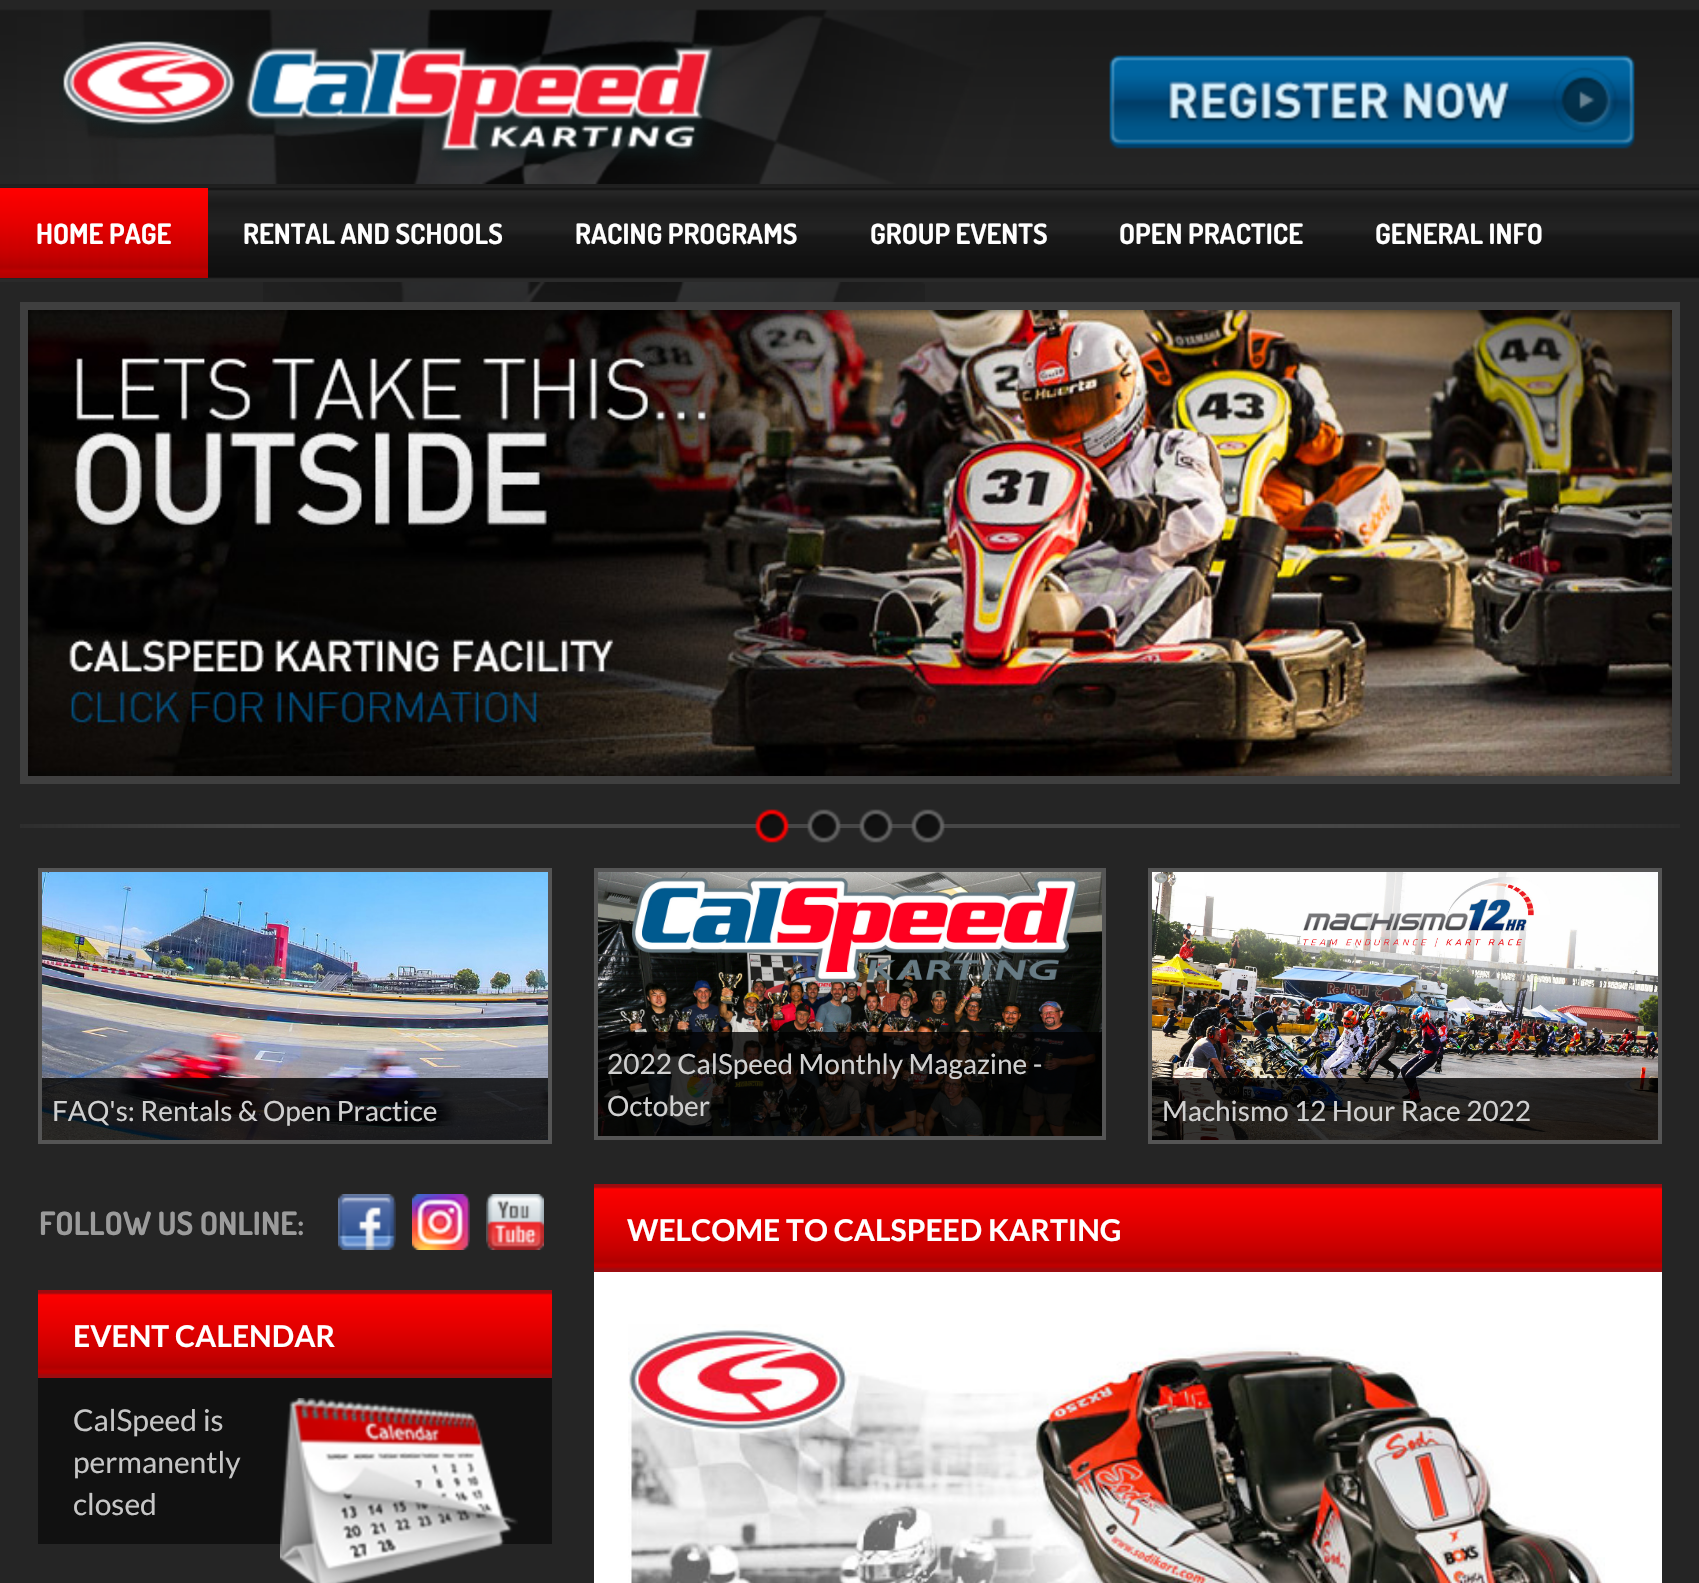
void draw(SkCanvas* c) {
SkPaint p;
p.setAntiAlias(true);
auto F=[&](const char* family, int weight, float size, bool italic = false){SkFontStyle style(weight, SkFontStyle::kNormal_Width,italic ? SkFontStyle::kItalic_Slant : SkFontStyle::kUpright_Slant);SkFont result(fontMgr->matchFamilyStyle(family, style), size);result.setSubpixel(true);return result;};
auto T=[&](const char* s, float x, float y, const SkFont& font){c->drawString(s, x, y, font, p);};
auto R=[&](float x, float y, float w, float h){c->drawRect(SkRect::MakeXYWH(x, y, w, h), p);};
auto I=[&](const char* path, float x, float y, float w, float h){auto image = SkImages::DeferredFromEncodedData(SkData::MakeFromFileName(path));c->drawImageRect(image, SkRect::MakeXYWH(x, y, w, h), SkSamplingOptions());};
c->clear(0xffffffff);
I("1.png",0,0,1699,184);
I("2.png",59,39,663,127);
I("3.png",1109,55,526,94);
I("4.png",0,184,1699,98);
I("5.png",0,188,208,90);
auto f1 = F("Dosis",700,28);
p.setColor(0xffffffff);
T("HOME PAGE",36,244,f1);
T("RENTAL AND SCHOOLS",243,244,f1);
T("RACING PROGRAMS",575,244,f1);
T("GROUP EVENTS",870,244,f1);
T("OPEN PRACTICE",1119,244,f1);
T("GENERAL INFO",1375,244,f1);
p.setColor(0xff252525);
R(0,282,1699,586);
I("6.png",263,282,662,20);
p.setStroke(true);
p.setStrokeWidth(8);
p.setColor(0xff3f3f3f);
c->drawRect(SkRect::MakeXYWH(24,306,1652,474),p);
I("7.png",28,310,1644,466);
I("8.png",20,824,1660,4);
I("9.png",755,809,34,34);
I("10.png",807,809,34,34);
I("10.png",859,809,34,34);
I("10.png",911,809,34,34);
p.setStroke(false);
{
const SkColor colors[] = {0xff252525,0xff252525,0xff1a1a1a};
const float stops[] = {0,.6,1};
const SkPoint ends[] = {{850,868}, {850,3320}};
p.setShader(SkGradientShader::MakeLinear(ends, colors, stops, 3, SkTileMode::kClamp));
p.setAlpha(255);
}
R(0,868,1699,715);
p.setStroke(true);
p.setStrokeWidth(4);
p.setShader(nullptr);
p.setColor(0xff555555);
c->drawRect(SkRect::MakeXYWH(40,870,510,272),p);
I("11.png",42,872,506,268);
p.setStroke(false);
p.setColor(0xcc000000);
R(42,1078,506,62);
auto f2 = F("Lato",400,28);
p.setColor(0xffd0d0d0);
T("FAQ's: Rentals & Open Practice",52,1121,f2);
p.setStroke(true);
p.setColor(0xff555555);
c->drawRect(SkRect::MakeXYWH(596,870,508,268),p);
I("12.png",598,872,504,264);
p.setStroke(false);
p.setColor(0xcc000000);
R(598,1032,504,104);
p.setColor(0xffd0d0d0);
T("2022 CalSpeed Monthly Magazine -",607,1074,f2);
T("October",607,1116,f2);
p.setStroke(true);
p.setColor(0xff555555);
c->drawRect(SkRect::MakeXYWH(1150,870,510,272),p);
I("13.png",1152,872,506,268);
p.setStroke(false);
p.setColor(0xcc000000);
R(1152,1078,506,62);
p.setColor(0xffd0d0d0);
T("Machismo 12 Hour Race 2022",1162,1121,f2);
auto f3 = F("Dosis",700,32);
p.setColor(0xff9b9b9b);
T("FOLLOW US ONLINE:",39,1235,f3);
I("14.png",338,1194,58,56);
I("15.png",412,1194,58,56);
I("16.png",486,1194,58,56);
I("17.png",38,1290,514,88);
auto f4 = F("Lato",700,30);
p.setColor(0xffffffff);
T("EVENT CALENDAR",73,1347,f4);
p.setColor(0xff111111);
R(38,1378,514,166);
auto f5 = F("Lato",400,30);
p.setColor(0xffc6c6c6);
T("CalSpeed is",73,1431,f5);
I("18.png",280,1398,238,185);
T("permanently",73,1473,f5);
T("closed",73,1515,f5);
I("19.png",594,1184,1068,88);
p.setColor(0xffffffff);
T("WELCOME TO CALSPEED KARTING",627,1241,f4);
R(594,1272,1068,311);
I("20.png",628,1324,977,259);
}
